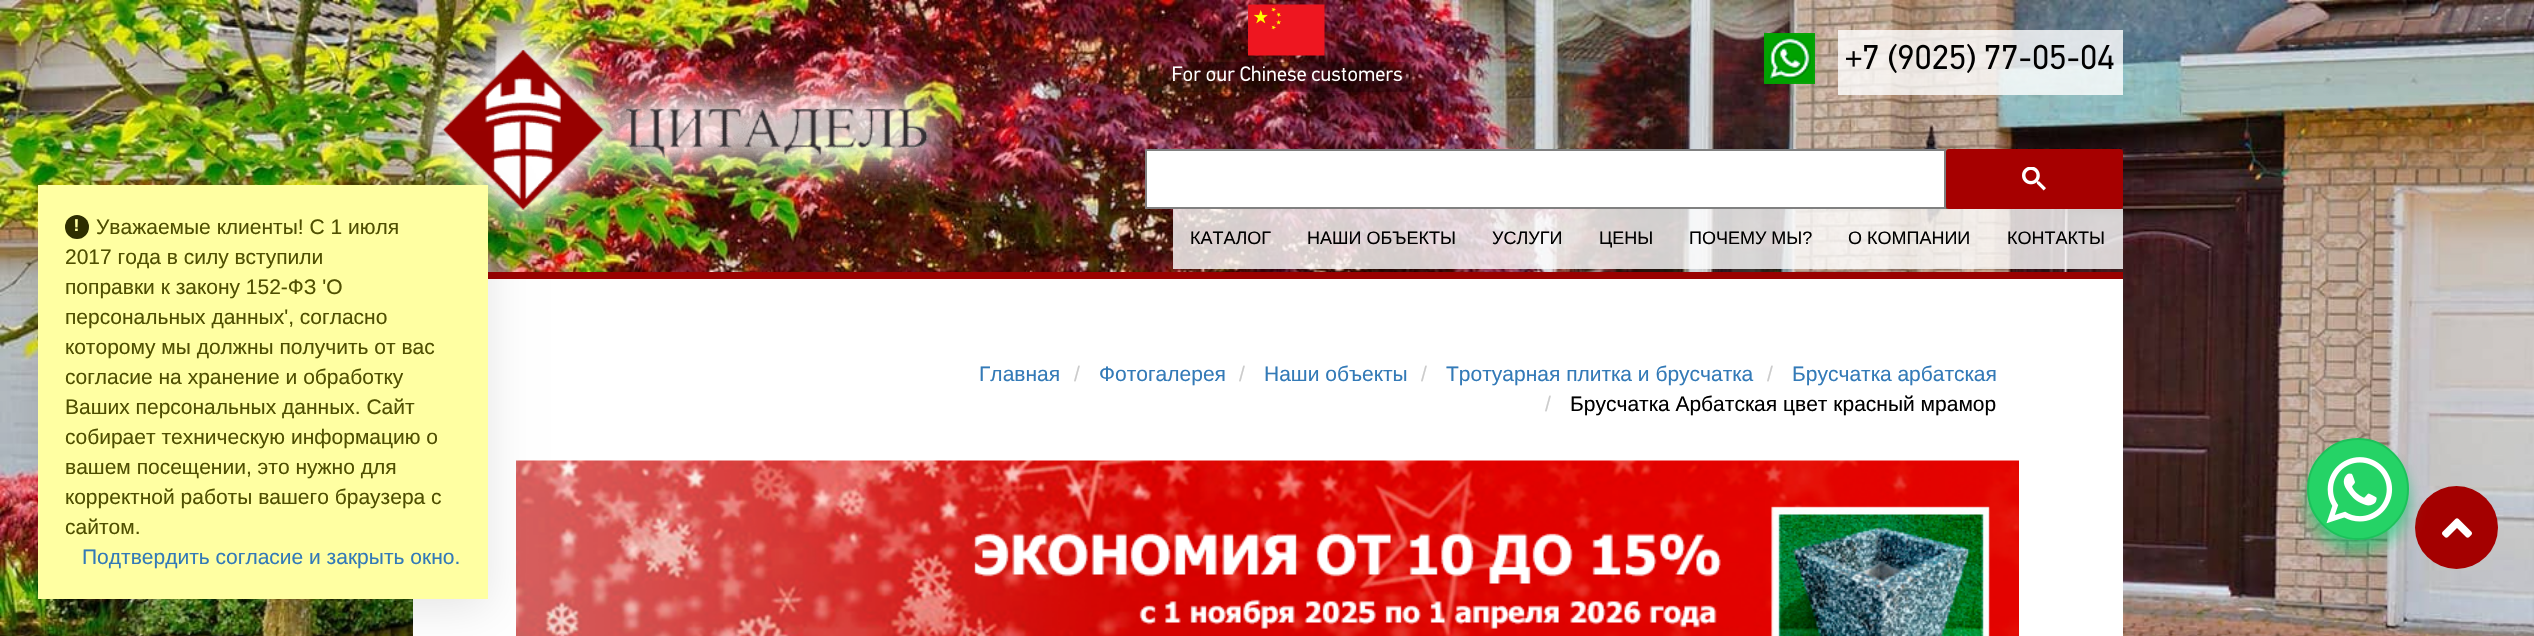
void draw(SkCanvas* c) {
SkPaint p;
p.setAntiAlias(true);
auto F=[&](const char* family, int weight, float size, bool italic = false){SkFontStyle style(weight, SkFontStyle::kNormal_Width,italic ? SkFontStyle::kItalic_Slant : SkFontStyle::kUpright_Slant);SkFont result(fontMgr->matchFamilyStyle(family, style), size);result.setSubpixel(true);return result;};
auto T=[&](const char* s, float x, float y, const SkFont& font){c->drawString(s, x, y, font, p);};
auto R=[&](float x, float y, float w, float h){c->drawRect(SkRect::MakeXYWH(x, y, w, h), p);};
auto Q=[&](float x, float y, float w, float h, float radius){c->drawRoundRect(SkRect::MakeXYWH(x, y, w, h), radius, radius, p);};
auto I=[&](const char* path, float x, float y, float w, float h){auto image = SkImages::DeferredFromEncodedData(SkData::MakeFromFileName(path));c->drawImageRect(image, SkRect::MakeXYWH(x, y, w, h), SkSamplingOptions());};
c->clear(0xffffffff);
I("1.png",0,0,2534,636);
I("2.png",412,30,541,200);
p.setColor(0xffffffff);
R(413,279,1710,357);
p.setColor(0xff990100);
R(488,272,1635,7);
I("8.png",516,460,1503,176);
p.setColor(0x1a000000);
p.setMaskFilter(SkMaskFilter::MakeBlur(kNormal_SkBlurStyle, 21));
c->drawRect(SkRect::MakeXYWH(38,194,450,414),p);
p.setMaskFilter(nullptr);
p.setColor(0xffffffa2);
R(38,185,450,414);
auto f1 = F("Liberation Sans",400,21);
p.setColor(0xff4f4f00);
T("Уважаемые клиенты! С 1 июля",96,234,f1);
T("2017 года в силу вступили",65,264,f1);
T("поправки к закону 152-ФЗ 'О",65,294,f1);
T("персональных данных', согласно",65,324,f1);
T("которому мы должны получить от вас",65,354,f1);
T("согласие на хранение и обработку",65,384,f1);
T("Ваших персональных данных. Сайт",65,414,f1);
T("собирает техническую информацию о",65,444,f1);
T("вашем посещении, это нужно для",65,474,f1);
T("корректной работы вашего браузера с",65,504,f1);
T("сайтом.",65,534,f1);
p.setColor(0xff337ab7);
T("Подтвердить согласие и закрыть окно.",82,564,f1);
p.setColor(0xff2e2e00);
c->drawCircle(77,227,12,p);
auto f2 = F("Liberation Mono",700,18);
p.setColor(0xffffffa2);
T("!",71,231,f2);
I("3.png",1248,4,77,52);
p.setColor(0x33000000);
Q(1163,62,249,30,6);
I("4.png",1173,65,229,17);
I("5.png",1764,33,51,51);
p.setColor(0xccffffff);
R(1838,30,285,65);
I("6.png",1846,43,268,30);
p.setColor(0xffffffff);
c->drawRect(SkRect::MakeXYWH(1146,150,799,58),p);
p.setStroke(true);
p.setStrokeWidth(2);
p.setColor(0xff808080);
c->drawRect(SkRect::MakeXYWH(1146,150,799,58),p);
p.setStroke(false);
p.setColor(0xffa60000);
c->drawRoundRect(SkRect::MakeXYWH(1947,150,175,58),2,2,p);
p.setStroke(true);
c->drawRoundRect(SkRect::MakeXYWH(1947,150,175,58),2,2,p);
I("7.png",2022,167,24,24);
p.setStroke(false);
p.setColor(0xccffffff);
R(1173,209,117,60);
auto f3 = F("Liberation Sans",400,18);
p.setColor(0xff000000);
T("КАТАЛОГ",1190,244,f3);
p.setColor(0xccffffff);
R(1290,209,185,60);
p.setColor(0xff000000);
T("НАШИ ОБЪЕКТЫ",1307,244,f3);
p.setColor(0xccffffff);
R(1475,209,106,60);
p.setColor(0xff000000);
T("УСЛУГИ",1492,244,f3);
p.setColor(0xccffffff);
R(1581,209,90,60);
p.setColor(0xff000000);
T("ЦЕНЫ",1599,244,f3);
p.setColor(0xccffffff);
R(1671,209,159,60);
p.setColor(0xff000000);
T("ПОЧЕМУ МЫ?",1689,244,f3);
p.setColor(0xccffffff);
R(1830,209,159,60);
p.setColor(0xff000000);
T("О КОМПАНИИ",1848,244,f3);
p.setColor(0xccffffff);
R(1989,209,134,60);
p.setColor(0xff000000);
T("КОНТАКТЫ",2007,244,f3);
p.setColor(0xff337ab7);
T("Главная",979,381,f1);
p.setColor(0xffcccccc);
T("/",1074,381,f1);
p.setColor(0xff337ab7);
T("Фотогалерея",1099,381,f1);
p.setColor(0xffcccccc);
T("/",1239,381,f1);
p.setColor(0xff337ab7);
T("Наши объекты",1264,381,f1);
p.setColor(0xffcccccc);
T("/",1421,381,f1);
p.setColor(0xff337ab7);
T("Тротуарная плитка и брусчатка",1446,381,f1);
p.setColor(0xffcccccc);
T("/",1767,381,f1);
p.setColor(0xff337ab7);
T("Брусчатка арбатская",1792,381,f1);
p.setColor(0xffcccccc);
T("/",1545,411,f1);
p.setColor(0xff000000);
T("Брусчатка Арбатская цвет красный мрамор",1570,411,f1);
p.setColor(0xffa40000);
c->drawCircle(2456.5,527.5,41.5,p);
p.setColor(0x9907ce70);
p.setMaskFilter(SkMaskFilter::MakeBlur(kNormal_SkBlurStyle, 7.5));
c->drawRoundRect(SkRect::MakeXYWH(2307,450,102,102),51,51,p);
p.setMaskFilter(nullptr);
p.setColor(0xff25d366);
c->drawCircle(2358,489,50,p);
p.setStroke(true);
p.setColor(0xff1cc15a);
c->drawCircle(2358,489,50,p);
I("9.png",2326,457,67,67);
I("10.png",2442,518,30,20);
}
